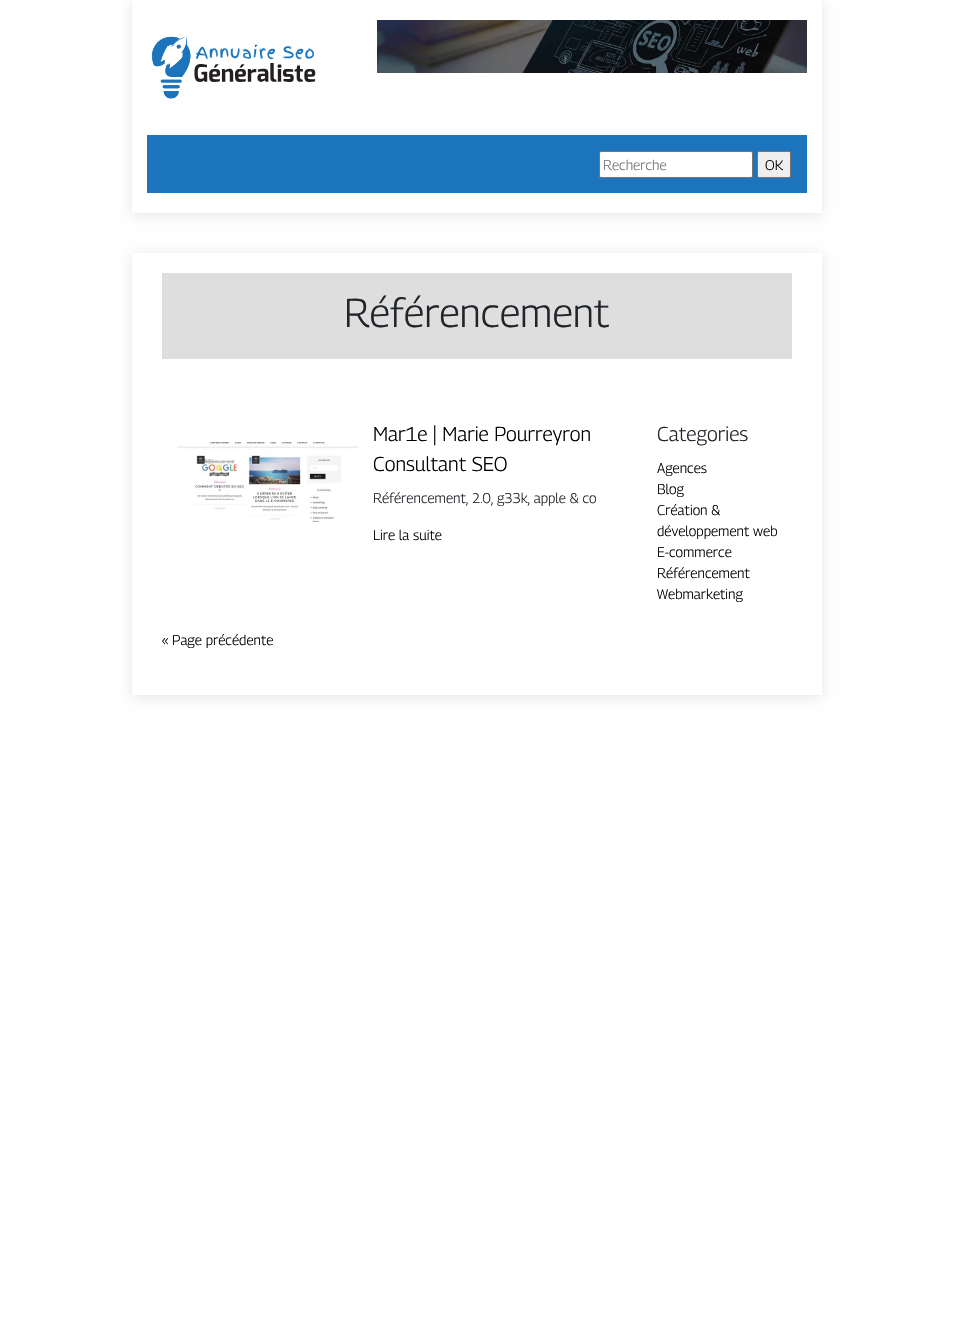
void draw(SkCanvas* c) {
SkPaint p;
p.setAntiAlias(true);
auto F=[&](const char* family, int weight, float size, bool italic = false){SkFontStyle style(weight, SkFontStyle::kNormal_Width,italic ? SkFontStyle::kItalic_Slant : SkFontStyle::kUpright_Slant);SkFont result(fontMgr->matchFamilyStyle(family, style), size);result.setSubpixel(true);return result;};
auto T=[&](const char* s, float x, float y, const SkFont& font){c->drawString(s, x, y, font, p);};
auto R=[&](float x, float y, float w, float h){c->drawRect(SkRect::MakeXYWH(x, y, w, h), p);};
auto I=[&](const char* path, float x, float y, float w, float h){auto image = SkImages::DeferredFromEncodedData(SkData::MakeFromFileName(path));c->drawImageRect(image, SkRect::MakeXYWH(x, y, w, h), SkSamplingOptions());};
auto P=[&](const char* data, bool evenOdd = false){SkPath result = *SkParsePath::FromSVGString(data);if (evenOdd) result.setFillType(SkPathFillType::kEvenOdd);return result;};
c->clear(0xffffffff);
c->save();
c->clipPath(P("M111 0h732v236h-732zm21 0h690v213h-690z",true),true);
p.setColor(0x1a000000);
p.setMaskFilter(SkMaskFilter::MakeBlur(kNormal_SkBlurStyle, 6.5));
c->drawRect(SkRect::MakeXYWH(132,2,690,213),p);
p.setMaskFilter(nullptr);
c->restore();
I("1.png",152,36,164,63);
I("2.png",377,20,430,53);
p.setColor(0xff1c75bc);
R(147,135,660,58);
p.setStroke(true);
p.setStrokeWidth(1);
p.setColor(0xff666666);
p.setPathEffect(SkDashPathEffect::Make({{1,1}}, 0));
c->drawPath(P("M147 135.5h660"),p);
p.setPathEffect(nullptr);
p.setPathEffect(SkDashPathEffect::Make({{1,1}}, 0));
c->drawPath(P("M147 192.5h660"),p);
p.setPathEffect(nullptr);
p.setStroke(false);
p.setColor(0xffffffff);
c->drawRoundRect(SkRect::MakeXYWH(599.5,151.5,153,26),1.5,1.5,p);
p.setStroke(true);
p.setColor(0xff767676);
c->drawRoundRect(SkRect::MakeXYWH(599.5,151.5,153,26),1.5,1.5,p);
auto f1 = F("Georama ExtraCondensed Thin",100,14);
p.setStroke(false);
p.setColor(0xff757575);
T("Recherche",603,170,f1);
p.setColor(0xffefefef);
c->drawRoundRect(SkRect::MakeXYWH(757.5,151.5,33,26),1.5,1.5,p);
p.setStroke(true);
p.setColor(0xff767676);
c->drawRoundRect(SkRect::MakeXYWH(757.5,151.5,33,26),1.5,1.5,p);
p.setStroke(false);
p.setColor(0xff000000);
T("OK",765,170,f1);
c->save();
c->clipPath(P("M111 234h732v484h-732zm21 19h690v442h-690z",true),true);
p.setColor(0x1a000000);
p.setMaskFilter(SkMaskFilter::MakeBlur(kNormal_SkBlurStyle, 6.5));
c->drawRect(SkRect::MakeXYWH(132,255,690,442),p);
p.setMaskFilter(nullptr);
c->restore();
p.setColor(0xffdedede);
R(162,273,630,86);
auto f2 = F("Georama ExtraCondensed Thin",100,40);
p.setColor(0xff212529);
T("Référencement",344,327,f2);
I("3.png",177,442,181,80);
auto f3 = F("Georama ExtraCondensed Thin",100,20);
p.setColor(0xff000000);
T("Mar1e | Marie Pourreyron",373,441,f3);
T("Consultant SEO",373,471,f3);
p.setColor(0xff212529);
T("Référencement, 2.0, g33k, apple & co",373,503,f1);
p.setColor(0xff000000);
T("Lire la suite",373,540,f1);
p.setColor(0xff212529);
T("Categories",657,441,f3);
p.setColor(0xff000000);
T("Agences",657,473,f1);
T("Blog",657,494,f1);
T("Création &",657,515,f1);
T("développement web",657,536,f1);
T("E-commerce",657,557,f1);
T("Référencement",657,578,f1);
T("Webmarketing",657,599,f1);
T("« Page précédente",162,645,f1);
}
